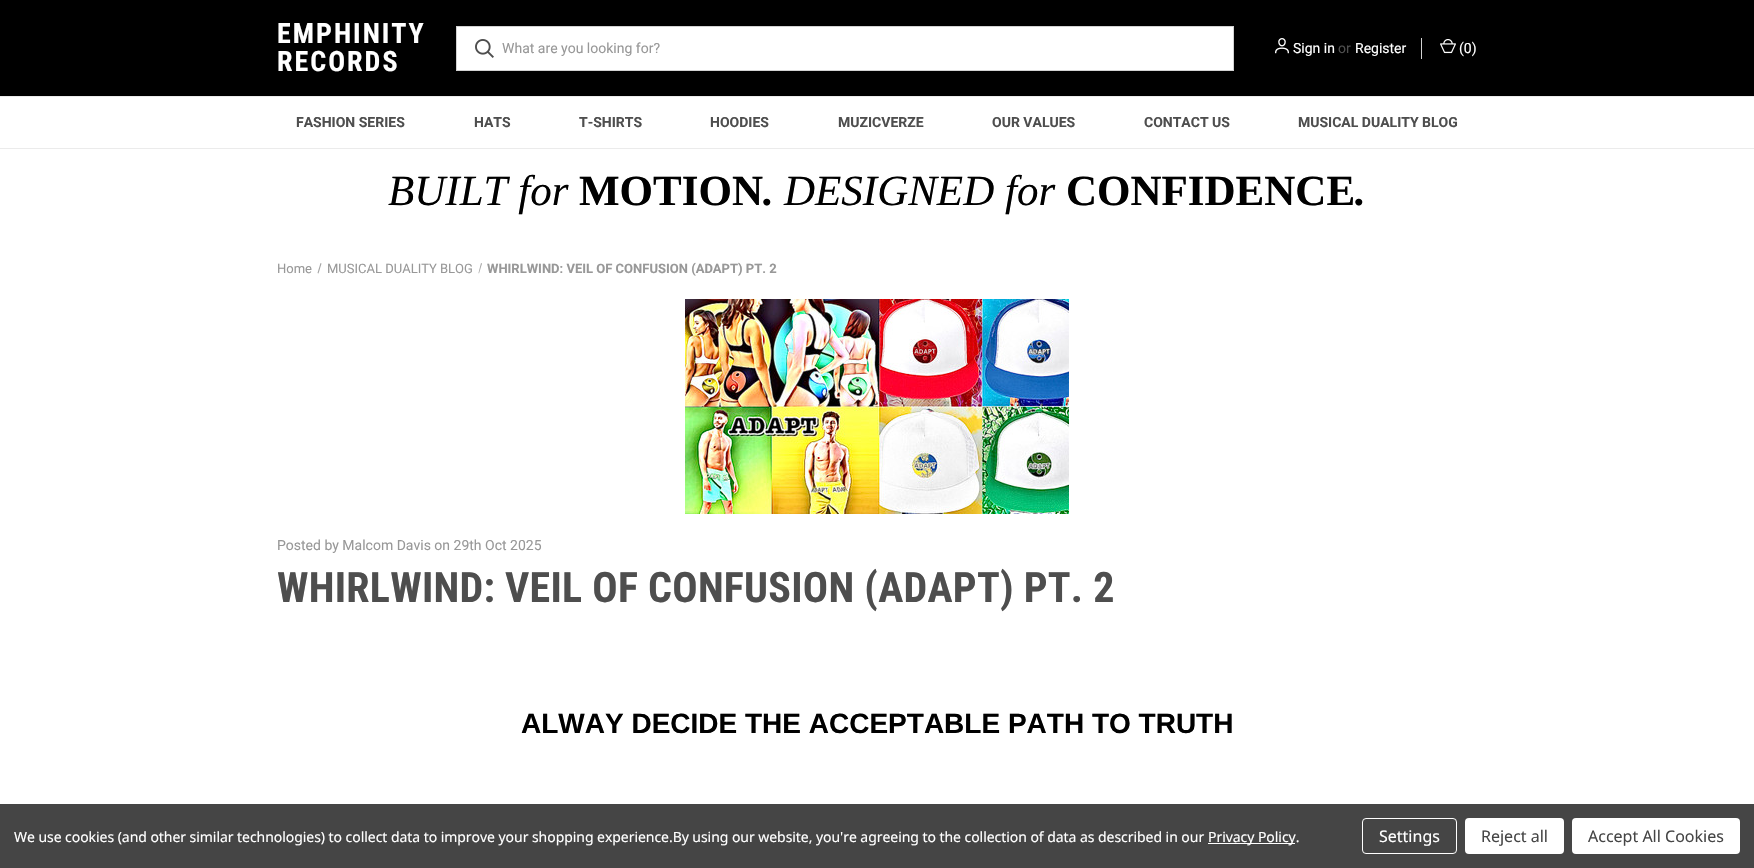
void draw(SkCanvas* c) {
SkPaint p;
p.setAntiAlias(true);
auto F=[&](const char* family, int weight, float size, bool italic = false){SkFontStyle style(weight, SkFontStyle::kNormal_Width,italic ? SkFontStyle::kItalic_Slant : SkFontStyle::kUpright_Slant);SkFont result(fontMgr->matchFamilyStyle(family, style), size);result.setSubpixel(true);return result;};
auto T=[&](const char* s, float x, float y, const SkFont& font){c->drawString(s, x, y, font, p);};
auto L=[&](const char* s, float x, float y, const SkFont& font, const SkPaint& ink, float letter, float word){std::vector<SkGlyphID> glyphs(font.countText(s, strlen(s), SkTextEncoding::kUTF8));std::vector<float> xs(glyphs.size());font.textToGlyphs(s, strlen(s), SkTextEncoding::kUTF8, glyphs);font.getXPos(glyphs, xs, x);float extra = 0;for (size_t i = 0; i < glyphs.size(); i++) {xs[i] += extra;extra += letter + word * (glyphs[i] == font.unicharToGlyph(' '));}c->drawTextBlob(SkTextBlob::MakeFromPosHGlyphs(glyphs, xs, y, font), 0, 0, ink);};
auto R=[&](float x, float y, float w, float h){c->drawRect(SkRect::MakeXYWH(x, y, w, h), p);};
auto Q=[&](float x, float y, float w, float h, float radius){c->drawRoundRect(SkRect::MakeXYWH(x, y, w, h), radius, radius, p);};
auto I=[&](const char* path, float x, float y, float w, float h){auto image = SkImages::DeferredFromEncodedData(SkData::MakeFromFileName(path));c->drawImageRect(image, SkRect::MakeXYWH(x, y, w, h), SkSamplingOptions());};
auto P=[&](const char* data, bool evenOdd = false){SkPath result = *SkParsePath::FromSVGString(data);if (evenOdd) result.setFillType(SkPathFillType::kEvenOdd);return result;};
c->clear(0xffffffff);
p.setColor(0xff000000);
R(0,0,1754,96);
auto f1 = F("Roboto Condensed",700,28);
p.setColor(0xffffffff);
L("EMPHINITY",277,43,f1,p,2,0);
L("RECORDS",277,71,f1,p,2,0);
c->drawRect(SkRect::MakeXYWH(456.5,26.5,777,44),p);
p.setStroke(true);
p.setStrokeWidth(1);
p.setColor(0xffd2d2d2);
c->drawRect(SkRect::MakeXYWH(456.5,26.5,777,44),p);
I("1.png",475,39,19,19);
auto f2 = F("Roboto",400,14);
p.setStroke(false);
p.setColor(0xff989898);
T("What are you looking for?",502,53,f2);
I("2.png",1275,38,14,16);
p.setColor(0xffffffff);
T("Sign in",1293,53,f2);
p.setColor(0xff4e4e4e);
T("or",1338,53,f2);
p.setColor(0xffffffff);
T("Register",1355,53,f2);
p.setColor(0xffd2d2d2);
R(1421,38,1,21);
I("3.png",1440,39,16,15);
p.setColor(0xffffffff);
T("(0)",1459,53,f2);
p.setColor(0xffebebeb);
R(0,96,1754,1);
R(0,148,1754,1);
auto f3 = F("Roboto",700,14);
p.setColor(0xff4e4e4e);
T("FASHION SERIES",296,127,f3);
T("HATS",474,127,f3);
T("T-SHIRTS",579,127,f3);
T("HOODIES",710,127,f3);
T("MUZICVERZE",838,127,f3);
T("OUR VALUES",992,127,f3);
T("CONTACT US",1144,127,f3);
T("MUSICAL DUALITY BLOG",1298,127,f3);
auto f4 = F("Liberation Serif",400,43,true);
p.setColor(0xff000000);
T("BUILT for",388,205,f4);
auto f5 = F("Liberation Serif",700,43);
T("MOTION",579,205,f5);
auto f6 = F("Liberation Serif",700,43,true);
T(".",763,205,f6);
T("DESIGNED for",784,205,f4);
T("CONFIDENCE",1066,205,f5);
T(".",1355,205,f6);
auto f7 = F("Roboto",400,13);
p.setColor(0xff989898);
T("Home",277,273,f7);
p.setColor(0xffa3a3a3);
c->drawPath(P("M320.5 263l1 .5l-3 10l-1-.5z"),p);
p.setColor(0xff989898);
T("MUSICAL DUALITY BLOG",327,273,f7);
p.setColor(0xffa3a3a3);
c->drawPath(P("M481 263l1 .5l-3 10l-.5-.5z"),p);
auto f8 = F("Roboto",700,13);
p.setColor(0xff989898);
T("WHIRLWIND: VEIL OF CONFUSION (ADAPT) PT. 2",487,273,f8);
I("4.png",685,299,384,215);
T("Posted by Malcom Davis on 29th Oct 2025",277,550,f2);
auto f9 = F("Roboto Condensed",700,42);
p.setColor(0xff4e4e4e);
L("WHIRLWIND: VEIL OF CONFUSION (ADAPT) PT. 2",277,602,f9,p,.25,0);
auto f10 = F("Liberation Sans",700,28);
p.setColor(0xff000000);
T("ALWAY DECIDE THE ACCEPTABLE PATH TO TRUTH",521,733,f10);
p.setColor(0xff454545);
R(0,804,1754,64);
auto f11 = F("Noto Sans",400,14);
p.setColor(0xffffffff);
L("We use cookies (and other similar technologies) to collect data to improve your shopping experience.By using our website, you're agreeing to the collection of data as described in our",14,842,f11,p,-.05,0);
R(1208,843,87,1);
L("Privacy Policy.",1208,842,f11,p,-.05,0);
p.setStroke(true);
c->drawRoundRect(SkRect::MakeXYWH(1362.5,818.5,94,35),3.5,3.5,p);
auto f12 = F("Noto Sans",400,16);
p.setStroke(false);
T("Settings",1379,842,f12);
Q(1465,818,99,36,4);
p.setColor(0xff454545);
T("Reject all",1481,842,f12);
p.setColor(0xffffffff);
Q(1572,818,168,36,4);
p.setColor(0xff454545);
T("Accept All Cookies",1588,842,f12);
}
